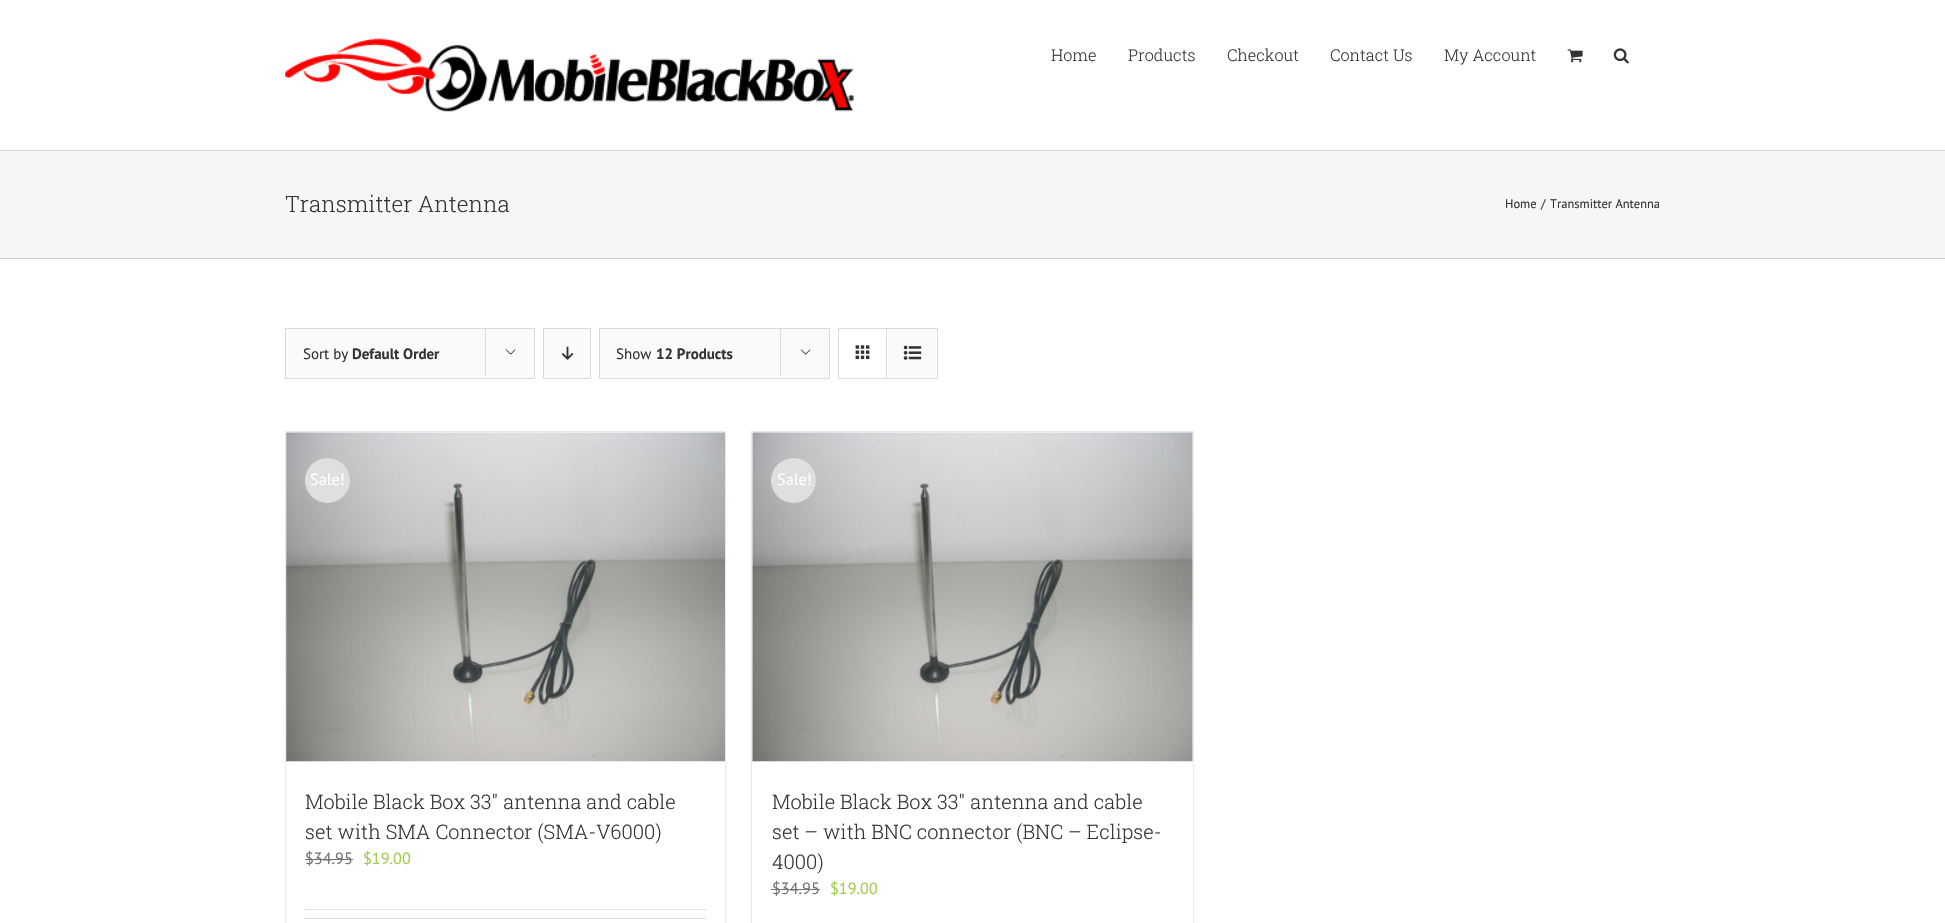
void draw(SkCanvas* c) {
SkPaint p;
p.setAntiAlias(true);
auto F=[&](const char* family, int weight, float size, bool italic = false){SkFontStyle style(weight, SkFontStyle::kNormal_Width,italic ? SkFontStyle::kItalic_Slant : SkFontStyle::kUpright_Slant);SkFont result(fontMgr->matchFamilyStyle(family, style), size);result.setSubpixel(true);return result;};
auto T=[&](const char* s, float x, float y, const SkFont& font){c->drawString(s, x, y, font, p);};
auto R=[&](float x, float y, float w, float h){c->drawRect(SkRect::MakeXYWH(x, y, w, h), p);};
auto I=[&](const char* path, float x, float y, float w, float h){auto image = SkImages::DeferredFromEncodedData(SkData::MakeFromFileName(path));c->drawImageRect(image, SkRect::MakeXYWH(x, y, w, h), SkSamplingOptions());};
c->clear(0xffffffff);
I("1.png",285,38,569,74);
auto f1 = F("Roboto Slab",300,16.25);
p.setColor(0xff333333);
T("Home",1051,61,f1);
T("Products",1128,61,f1);
T("Checkout",1227,61,f1);
T("Contact Us",1330,61,f1);
T("My Account",1444,61,f1);
I("2.png",1567,49,16,14);
I("3.png",1613,48,16,16);
p.setColor(0xfff6f6f6);
R(0,151,1945,107);
p.setColor(0xffd2d3d4);
R(0,150,1945,1);
R(0,258,1945,1);
auto f2 = F("Roboto Slab",300,22.5);
p.setColor(0xff333333);
T("Transmitter Antenna",285,212,f2);
auto f3 = F("PT Sans",400,12.5);
T("Home",1505,208,f3);
T("/",1541,208,f3);
T("Transmitter Antenna",1550,208,f3);
p.setColor(0xfffbfaf9);
c->drawRect(SkRect::MakeXYWH(285.5,328.5,249,50),p);
p.setStroke(true);
p.setStrokeWidth(1);
p.setColor(0xffdbdbdb);
c->drawRect(SkRect::MakeXYWH(285.5,328.5,249,50),p);
auto f4 = F("PT Sans",400,15);
p.setStroke(false);
p.setColor(0xff333333);
T("Sort by",303,359,f4);
auto f5 = F("PT Sans",700,15);
T("Default Order",352,359,f5);
p.setColor(0xffdbdbdb);
R(485,328,1,48);
I("4.png",505,349,11,6);
p.setColor(0xfffbfaf9);
c->drawRect(SkRect::MakeXYWH(543.5,328.5,47,50),p);
p.setStroke(true);
p.setColor(0xffdbdbdb);
c->drawRect(SkRect::MakeXYWH(543.5,328.5,47,50),p);
I("5.png",561,346,13,14);
p.setStroke(false);
p.setColor(0xfffbfaf9);
c->drawRect(SkRect::MakeXYWH(599.5,328.5,230,50),p);
p.setStroke(true);
p.setColor(0xffdbdbdb);
c->drawRect(SkRect::MakeXYWH(599.5,328.5,230,50),p);
p.setStroke(false);
p.setColor(0xff333333);
T("Show",616,359,f4);
T("12 Products",656,359,f5);
p.setColor(0xffdbdbdb);
R(780,328,1,48);
I("4.png",800,349,11,6);
p.setStroke(true);
c->drawRect(SkRect::MakeXYWH(838.5,328.5,99,50),p);
p.setStroke(false);
R(886,329,1,49);
I("6.png",855,345,15,15);
p.setColor(0xfffbfaf9);
R(888,329,48,49);
I("7.png",903,345,19,15);
p.setColor(0xffebeaea);
R(285,431,441,1);
R(725,431,1,492);
R(285,431,1,492);
I("8.png",286,432,439,330);
p.setColor(0xffe0dede);
c->drawCircle(327.5,480.5,22.5,p);
auto f6 = F("PT Sans",400,16.25);
p.setColor(0xffffffff);
T("Sale!",310,485,f6);
auto f7 = F("Roboto Slab",300,20);
p.setColor(0xff333333);
T("Mobile Black Box 33″ antenna and cable",305,809,f7);
T("set with SMA Connector (SMA-V6000)",305,839,f7);
p.setColor(0xff747474);
T("$34.95",305,864,f6);
R(305,859,48,1);
p.setColor(0xffa0ce4e);
T("$19.00",363,864,f6);
p.setColor(0xffe0dede);
R(305,909,401,1);
R(305,918,401,1);
p.setColor(0xffebeaea);
R(751,431,443,1);
R(1193,431,1,492);
R(751,431,1,492);
I("9.png",752,432,441,330);
p.setColor(0xffe0dede);
c->drawCircle(793.5,480.5,22.5,p);
p.setColor(0xffffffff);
T("Sale!",777,485,f6);
p.setColor(0xff333333);
T("Mobile Black Box 33″ antenna and cable",772,809,f7);
T("set – with BNC connector (BNC – Eclipse-",772,839,f7);
T("4000)",772,869,f7);
p.setColor(0xff747474);
T("$34.95",772,894,f6);
R(771,889,49,1);
p.setColor(0xffa0ce4e);
T("$19.00",830,894,f6);
}
